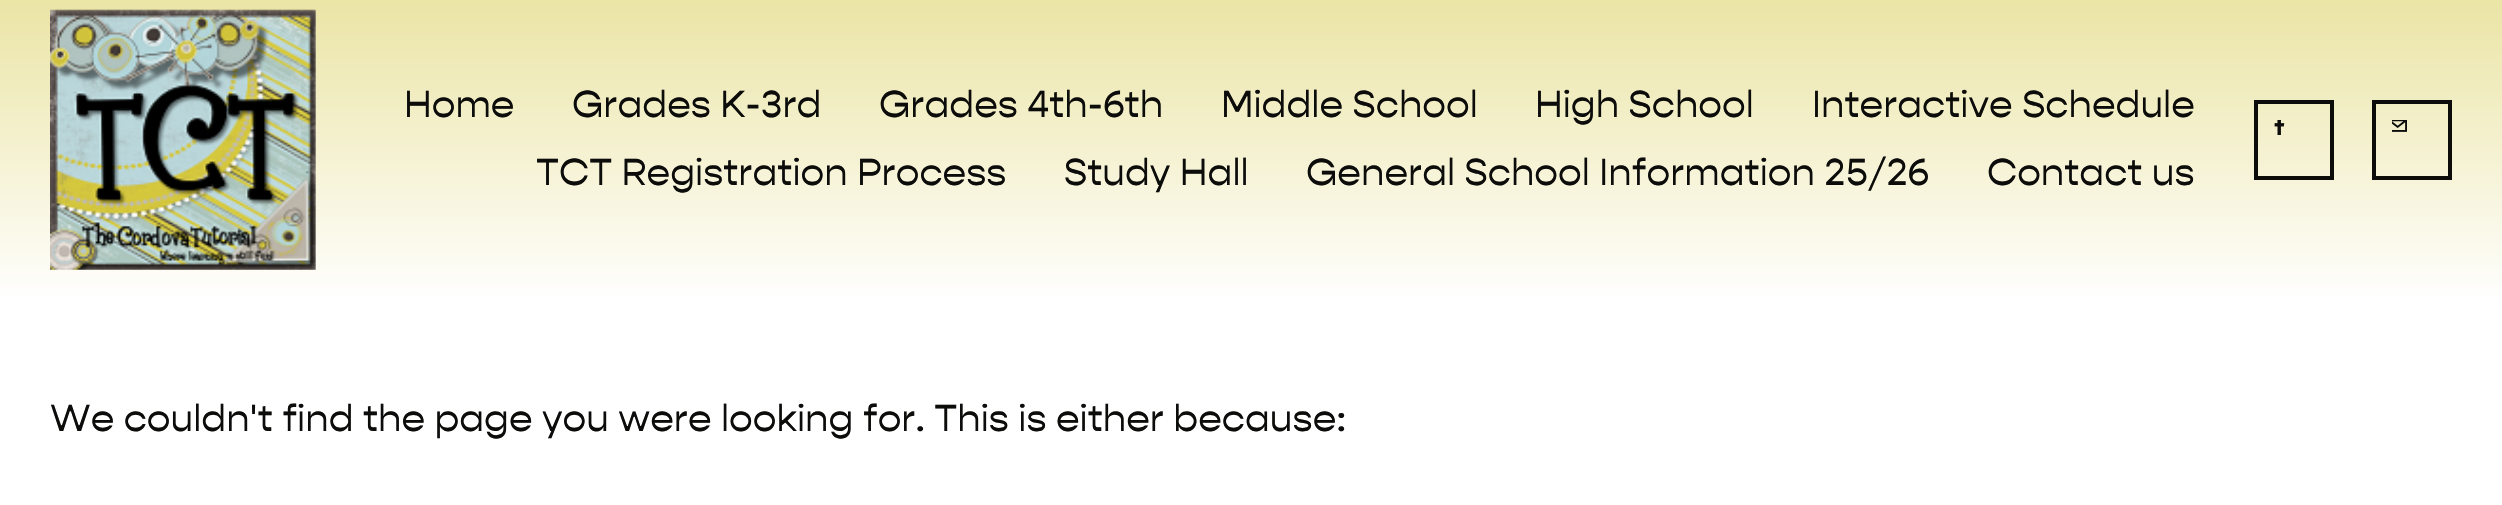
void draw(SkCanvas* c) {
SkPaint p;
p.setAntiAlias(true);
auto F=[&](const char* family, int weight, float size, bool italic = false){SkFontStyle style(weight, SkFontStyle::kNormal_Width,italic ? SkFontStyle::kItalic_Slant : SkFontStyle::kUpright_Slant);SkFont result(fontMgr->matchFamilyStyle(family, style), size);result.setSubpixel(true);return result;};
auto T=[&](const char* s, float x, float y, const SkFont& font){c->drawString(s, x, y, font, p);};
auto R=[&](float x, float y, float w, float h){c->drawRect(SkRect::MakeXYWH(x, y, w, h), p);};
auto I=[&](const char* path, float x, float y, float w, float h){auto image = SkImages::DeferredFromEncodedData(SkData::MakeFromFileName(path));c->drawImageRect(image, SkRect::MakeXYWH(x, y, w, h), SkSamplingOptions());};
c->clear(0xffffffff);
{
const SkColor colors[] = {0xffe9e29d,0xffffffff};
const float stops[] = {0,1};
const SkPoint ends[] = {{1251,-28}, {1251,306}};
p.setShader(SkGradientShader::MakeLinear(ends, colors, stops, 2, SkTileMode::kClamp));
p.setAlpha(255);
}
R(0,0,2502,297);
I("1.png",50,9,266,261);
auto f1 = F("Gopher",400,38);
p.setShader(nullptr);
p.setColor(0xff0c0c0b);
T("Home",404,117,f1);
T("Grades K-3rd",572,117,f1);
T("Grades 4th-6th",879,117,f1);
T("Middle School",1221,117,f1);
T("High School",1535,117,f1);
T("Interactive Schedule",1812,117,f1);
T("TCT Registration Process",536,185,f1);
T("Study Hall",1064,185,f1);
T("General School Information 25/26",1306,185,f1);
T("Contact us",1987,185,f1);
p.setStroke(true);
p.setStrokeWidth(4);
c->drawRect(SkRect::MakeXYWH(2256,102,76,76),p);
I("2.png",2274,120,11,15);
c->drawRect(SkRect::MakeXYWH(2374,102,76,76),p);
I("3.png",2392,120,15,12);
p.setStroke(false);
T("We couldn't find the page you were looking for. This is either because:",50,431,f1);
}
